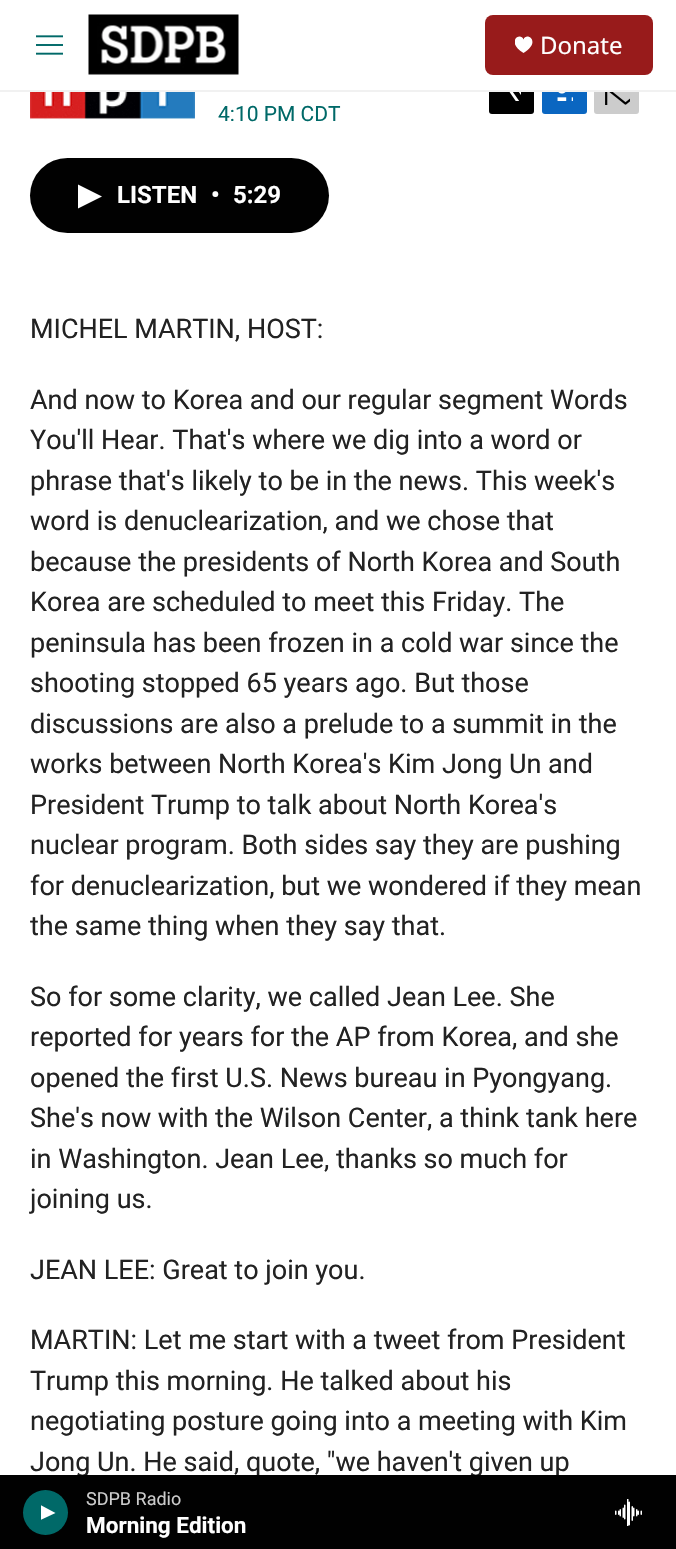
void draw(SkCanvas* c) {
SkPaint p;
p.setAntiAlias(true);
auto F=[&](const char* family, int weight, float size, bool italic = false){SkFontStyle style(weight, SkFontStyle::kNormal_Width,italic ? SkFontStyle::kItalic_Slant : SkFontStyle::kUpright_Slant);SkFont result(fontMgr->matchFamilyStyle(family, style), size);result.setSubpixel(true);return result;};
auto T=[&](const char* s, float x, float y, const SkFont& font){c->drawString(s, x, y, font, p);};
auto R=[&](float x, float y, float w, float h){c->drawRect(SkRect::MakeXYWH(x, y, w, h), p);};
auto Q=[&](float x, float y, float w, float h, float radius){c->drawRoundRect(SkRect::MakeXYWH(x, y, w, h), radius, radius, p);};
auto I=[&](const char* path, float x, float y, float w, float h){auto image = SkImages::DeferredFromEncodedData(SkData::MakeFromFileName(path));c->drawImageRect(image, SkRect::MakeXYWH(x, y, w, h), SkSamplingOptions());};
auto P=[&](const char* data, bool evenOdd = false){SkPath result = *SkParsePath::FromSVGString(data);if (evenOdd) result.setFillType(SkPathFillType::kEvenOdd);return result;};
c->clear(0xffffffff);
p.setColor(0xff000000);
Q(489,69,45,45,3);
p.setColor(0xff0a66c1);
Q(542,69,45,45,3);
p.setColor(0xffcccccc);
c->drawRoundRect(SkRect::MakeXYWH(595,70,43,43),2,2,p);
p.setStroke(true);
p.setStrokeWidth(2);
c->drawRoundRect(SkRect::MakeXYWH(595,70,43,43),2,2,p);
p.setStroke(false);
p.setColor(0xffffffff);
R(489,69,150,21);
p.setColor(0xfff1f1f1);
R(0,90,676,2);
I("1.png",36,35,27,20);
I("2.png",88,14,151,61);
p.setColor(0xff981b1b);
Q(485,15,168,60,8);
c->save();
c->clipRect(SkRect::MakeXYWH(515,36,18,18));
p.setColor(0xffffffff);
c->drawPath(P("M523.5 39.5c-3-8-18.5 2 0 13.5c18.5-11.5 3-21.5 0-13.5z"),p);
c->restore();
auto f1 = F("Noto Sans",400,24);
T("Donate",540,54,f1);
auto f2 = F("Roboto",400,27);
p.setColor(0xff222222);
T("Jong Un. He said, quote, \"we haven't given up",30,1471,f2);
p.setColor(0xff010101);
R(0,1475,676,74);
p.setColor(0xff006968);
c->drawCircle(45.5,1512.5,22.5,p);
c->save();
c->clipRect(SkRect::MakeXYWH(41,1505,15,16));
p.setColor(0xffffffff);
c->drawPath(P("M40.5 1505l15 8l-15 7z"),p);
c->restore();
auto f3 = F("Roboto",400,18);
p.setColor(0xffcccccc);
T("SDPB Radio",86,1505,f3);
auto f4 = F("Roboto",700,22.5);
p.setColor(0xffffffff);
T("Morning Edition",86,1533,f4);
I("3.png",615,1499,27,27);
I("4.png",30,92,165,28);
auto f5 = F("Roboto",400,21);
p.setColor(0xff006968);
T("4:10 PM CDT",218,121,f5);
I("5.png",509,92,12,9);
I("6.png",557,92,16,9);
I("7.png",605,92,25,13);
p.setColor(0xff010101);
Q(30,158,299,75,37.5);
p.setColor(0xffffffff);
c->drawPath(P("M78 184.5l24 12l-24 12z"),p);
auto f6 = F("Roboto",700,24);
T("LISTEN",117,203,f6);
T("•",211,203,f6);
T("5:29",233,203,f6);
p.setColor(0xff222222);
T("MICHEL MARTIN, HOST:",30,338,f2);
T("And now to Korea and our regular segment Words",30,409,f2);
T("You'll Hear. That's where we dig into a word or",30,449,f2);
T("phrase that's likely to be in the news. This week's",30,490,f2);
T("word is denuclearization, and we chose that",30,530,f2);
T("because the presidents of North Korea and South",30,571,f2);
T("Korea are scheduled to meet this Friday. The",30,611,f2);
T("peninsula has been frozen in a cold war since the",30,652,f2);
T("shooting stopped 65 years ago. But those",30,692,f2);
T("discussions are also a prelude to a summit in the",30,733,f2);
T("works between North Korea's Kim Jong Un and",30,773,f2);
T("President Trump to talk about North Korea's",30,814,f2);
T("nuclear program. Both sides say they are pushing",30,854,f2);
T("for denuclearization, but we wondered if they mean",30,895,f2);
T("the same thing when they say that.",30,935,f2);
T("So for some clarity, we called Jean Lee. She",30,1006,f2);
T("reported for years for the AP from Korea, and she",30,1046,f2);
T("opened the first U.S. News bureau in Pyongyang.",30,1087,f2);
T("She's now with the Wilson Center, a think tank here",30,1127,f2);
T("in Washington. Jean Lee, thanks so much for",30,1168,f2);
T("joining us.",30,1208,f2);
T("JEAN LEE: Great to join you.",30,1279,f2);
T("MARTIN: Let me start with a tweet from President",30,1349,f2);
T("Trump this morning. He talked about his",30,1390,f2);
T("negotiating posture going into a meeting with Kim",30,1430,f2);
}
